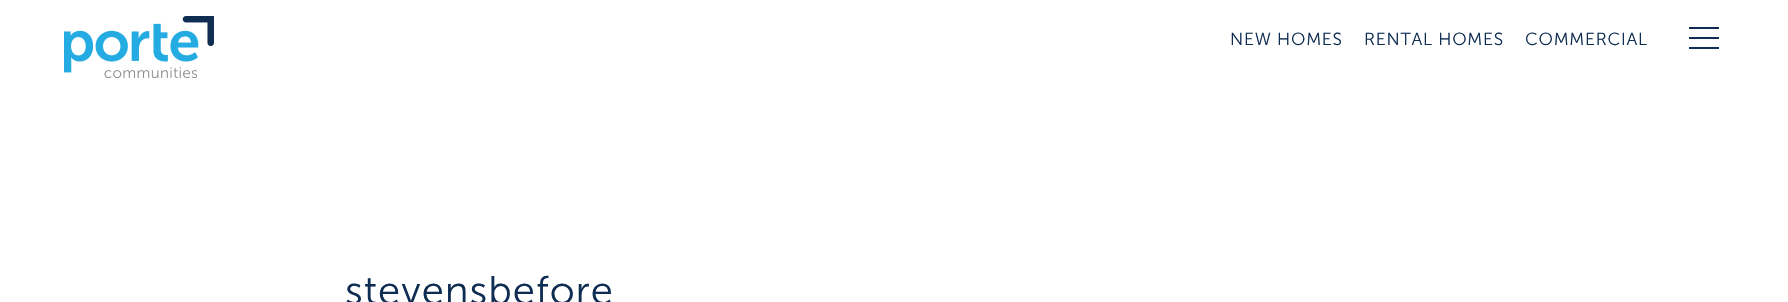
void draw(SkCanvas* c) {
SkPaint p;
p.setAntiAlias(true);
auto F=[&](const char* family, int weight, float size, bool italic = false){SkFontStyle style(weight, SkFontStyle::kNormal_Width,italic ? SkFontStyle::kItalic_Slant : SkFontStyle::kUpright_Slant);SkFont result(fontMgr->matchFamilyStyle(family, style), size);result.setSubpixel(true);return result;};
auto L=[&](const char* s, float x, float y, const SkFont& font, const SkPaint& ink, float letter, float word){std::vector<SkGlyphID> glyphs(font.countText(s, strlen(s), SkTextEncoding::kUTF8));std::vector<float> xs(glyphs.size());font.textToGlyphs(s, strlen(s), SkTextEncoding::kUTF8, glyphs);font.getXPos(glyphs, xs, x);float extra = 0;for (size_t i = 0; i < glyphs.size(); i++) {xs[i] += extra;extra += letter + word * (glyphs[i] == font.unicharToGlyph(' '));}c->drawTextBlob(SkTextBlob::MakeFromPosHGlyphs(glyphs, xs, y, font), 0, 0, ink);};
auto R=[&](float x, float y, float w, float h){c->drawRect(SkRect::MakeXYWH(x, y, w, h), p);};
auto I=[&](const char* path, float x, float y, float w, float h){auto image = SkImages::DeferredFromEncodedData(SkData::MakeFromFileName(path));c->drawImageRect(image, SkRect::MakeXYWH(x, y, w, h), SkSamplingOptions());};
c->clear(0xffffffff);
I("1.png",64,16,150,62);
auto f1 = F("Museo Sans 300",300,17.5);
p.setColor(0xff0f2d52);
L("NEW HOMES",1230,45,f1,p,.75,0);
L("RENTAL HOMES",1364,45,f1,p,.75,0);
L("COMMERCIAL",1525,45,f1,p,.75,0);
R(1689,27,30,2);
R(1689,37,30,2);
R(1689,47,30,2);
auto f2 = F("Museo Sans 300",300,40);
L("stevensbefore",345,304,f2,p,1,0);
}
